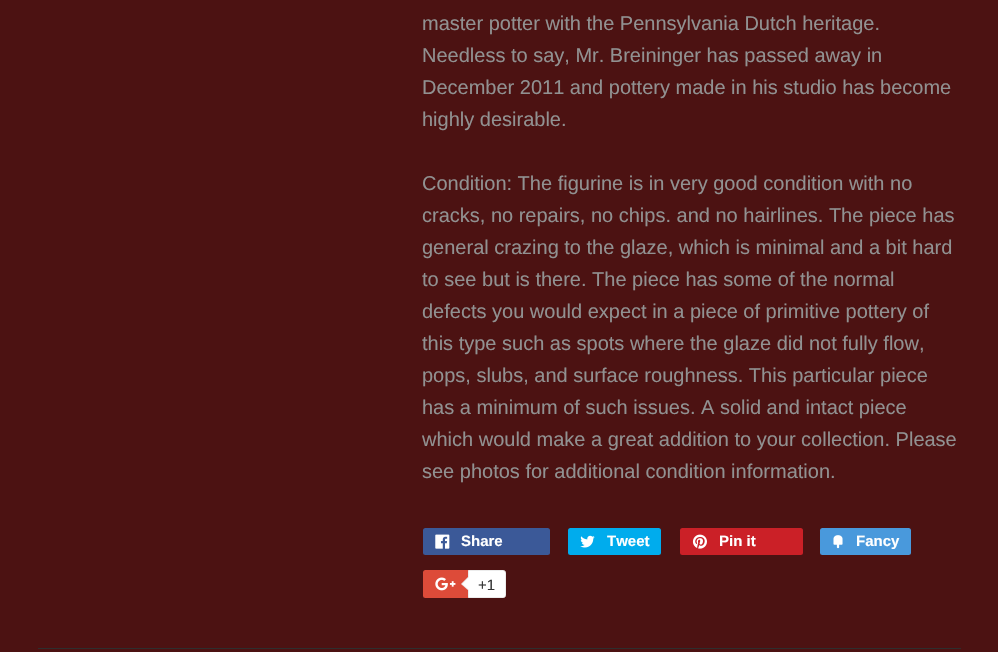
void draw(SkCanvas* c) {
SkPaint p;
p.setAntiAlias(true);
auto F=[&](const char* family, int weight, float size, bool italic = false){SkFontStyle style(weight, SkFontStyle::kNormal_Width,italic ? SkFontStyle::kItalic_Slant : SkFontStyle::kUpright_Slant);SkFont result(fontMgr->matchFamilyStyle(family, style), size);result.setSubpixel(true);return result;};
auto T=[&](const char* s, float x, float y, const SkFont& font){c->drawString(s, x, y, font, p);};
auto R=[&](float x, float y, float w, float h){c->drawRect(SkRect::MakeXYWH(x, y, w, h), p);};
auto Q=[&](float x, float y, float w, float h, float radius){c->drawRoundRect(SkRect::MakeXYWH(x, y, w, h), radius, radius, p);};
auto I=[&](const char* path, float x, float y, float w, float h){auto image = SkImages::DeferredFromEncodedData(SkData::MakeFromFileName(path));c->drawImageRect(image, SkRect::MakeXYWH(x, y, w, h), SkSamplingOptions());};
auto P=[&](const char* data, bool evenOdd = false){SkPath result = *SkParsePath::FromSVGString(data);if (evenOdd) result.setFillType(SkPathFillType::kEvenOdd);return result;};
c->clear(0xff4c1212);
auto f1 = F("Liberation Sans",400,20);
p.setColor(0xff919191);
T("master potter with the Pennsylvania Dutch heritage.",422,30,f1);
T("Needless to say, Mr. Breininger has passed away in",422,62,f1);
T("December 2011 and pottery made in his studio has become",422,94,f1);
T("highly desirable.",422,126,f1);
T("Condition: The figurine is in very good condition with no",422,190,f1);
T("cracks, no repairs, no chips. and no hairlines. The piece has",422,222,f1);
T("general crazing to the glaze, which is minimal and a bit hard",422,254,f1);
T("to see but is there. The piece has some of the normal",422,286,f1);
T("defects you would expect in a piece of primitive pottery of",422,318,f1);
T("this type such as spots where the glaze did not fully flow,",422,350,f1);
T("pops, slubs, and surface roughness. This particular piece",422,382,f1);
T("has a minimum of such issues. A solid and intact piece",422,414,f1);
T("which would make a great addition to your collection. Please",422,446,f1);
T("see photos for additional condition information.",422,478,f1);
p.setColor(0xff3b5998);
Q(423,528,127,27,2.5);
I("1.png",435,534,15,15);
auto f2 = F("Liberation Sans",700,15);
p.setColor(0xffffffff);
T("Share",461,546,f2);
p.setColor(0xff00aced);
Q(568,528,93,27,2.5);
I("2.png",580,535,15,13);
p.setColor(0xffffffff);
T("Tweet",607,546,f2);
p.setColor(0xffcb2027);
Q(680,528,123,27,2.5);
I("3.png",692,534,15,15);
p.setColor(0xffffffff);
T("Pin it",719,546,f2);
p.setColor(0xff4999dc);
Q(820,528,91,27,2.5);
I("4.png",833,535,10,14);
p.setColor(0xffffffff);
T("Fancy",856,546,f2);
p.setColor(0xffdd4b39);
Q(423,570,81,28,2.5);
I("5.png",435,577,21,14);
p.setColor(0xffffffff);
c->drawPath(P("M468.5 570.5h35c1 0 2 1 2 2v23c0 1-1 2-2 2h-35z"),p);
p.setStroke(true);
p.setStrokeWidth(1);
p.setColor(0xffececec);
c->drawPath(P("M468.5 570.5h35c1 0 2 1 2 2v23c0 1-1 2-2 2h-35z"),p);
p.setStroke(false);
c->drawPath(P("M469 576v15l-8-7z"),p);
p.setColor(0xffffffff);
c->drawPath(P("M470 576v15l-7.5-7z"),p);
auto f3 = F("Liberation Sans",400,15);
p.setColor(0xff333333);
T("+1",478,590,f3);
p.setColor(0xff2e2e2e);
R(38,648,923,1);
}
